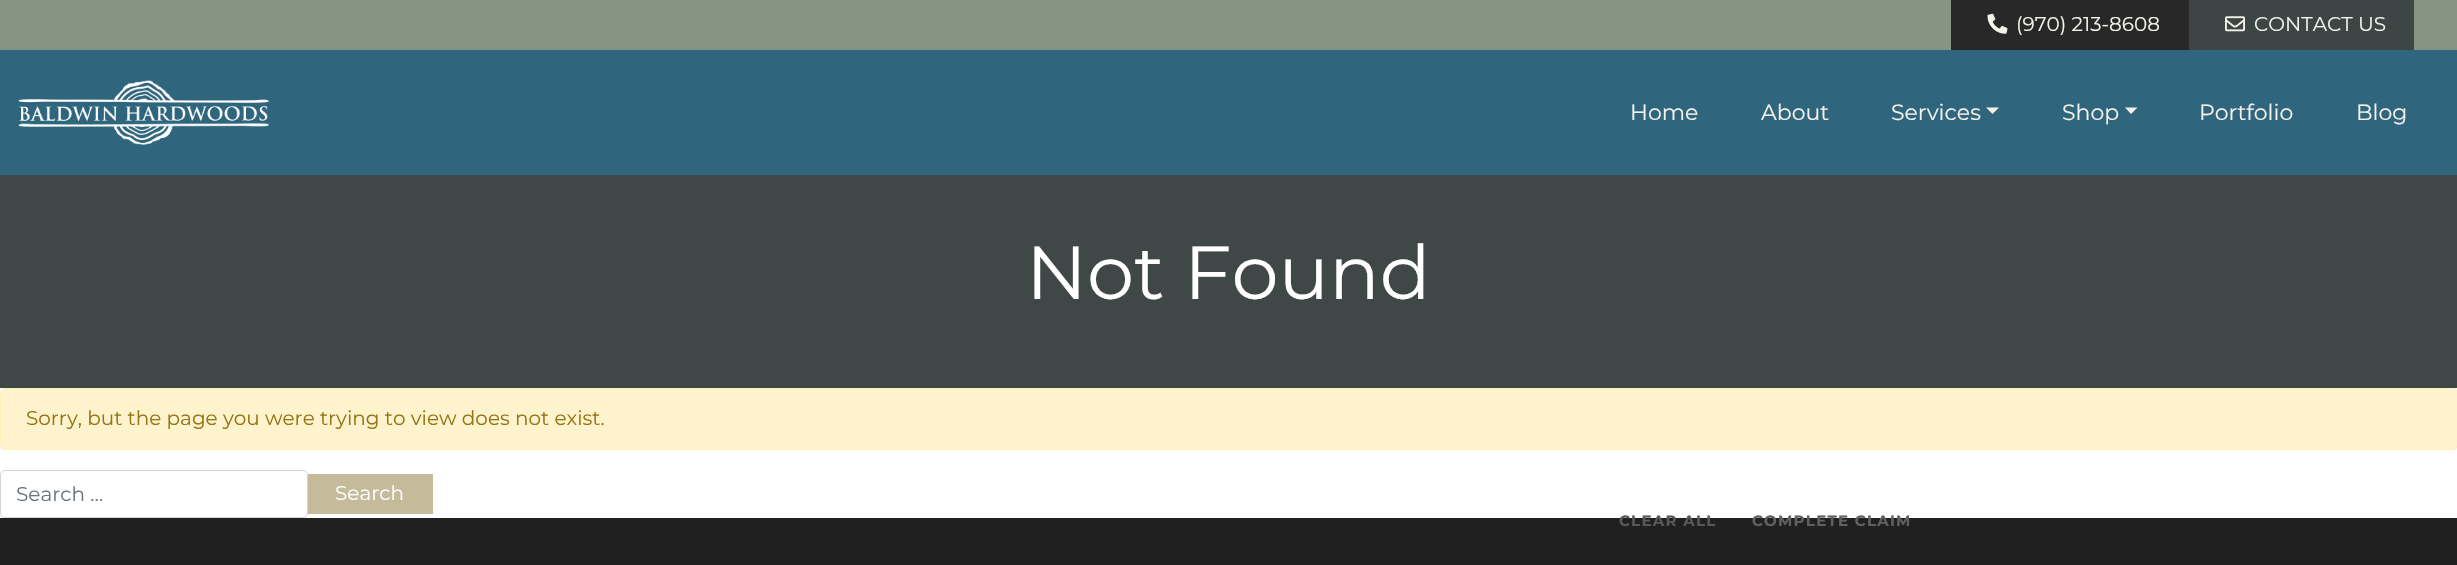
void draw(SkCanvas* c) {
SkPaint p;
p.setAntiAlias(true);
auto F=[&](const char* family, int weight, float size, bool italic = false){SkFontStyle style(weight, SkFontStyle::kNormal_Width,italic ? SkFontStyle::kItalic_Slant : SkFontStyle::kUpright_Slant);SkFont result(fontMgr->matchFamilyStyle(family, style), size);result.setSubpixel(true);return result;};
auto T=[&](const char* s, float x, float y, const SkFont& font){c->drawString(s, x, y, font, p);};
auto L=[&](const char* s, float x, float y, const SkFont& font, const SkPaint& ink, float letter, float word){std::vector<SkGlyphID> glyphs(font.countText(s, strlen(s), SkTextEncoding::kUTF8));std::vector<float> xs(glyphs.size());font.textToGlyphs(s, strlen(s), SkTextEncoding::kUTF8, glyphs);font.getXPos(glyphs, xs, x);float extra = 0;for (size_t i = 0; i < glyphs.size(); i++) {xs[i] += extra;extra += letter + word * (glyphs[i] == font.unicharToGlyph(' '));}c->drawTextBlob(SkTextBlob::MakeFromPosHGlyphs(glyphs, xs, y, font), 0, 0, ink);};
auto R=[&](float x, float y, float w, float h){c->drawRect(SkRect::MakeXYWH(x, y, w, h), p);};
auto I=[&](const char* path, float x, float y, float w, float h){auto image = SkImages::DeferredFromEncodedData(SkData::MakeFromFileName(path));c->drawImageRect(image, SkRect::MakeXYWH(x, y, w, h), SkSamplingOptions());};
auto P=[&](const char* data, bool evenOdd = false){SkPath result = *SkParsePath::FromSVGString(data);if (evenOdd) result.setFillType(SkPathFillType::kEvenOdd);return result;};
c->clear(0xffffffff);
p.setColor(0xff2f657d);
R(0,50,2457,125);
p.setColor(0xff879484);
R(0,0,2457,50);
p.setColor(0xff282828);
R(1951,0,238,50);
I("1.png",1987,13,21,21);
auto f1 = F("Montserrat",400,20);
p.setColor(0xfff4f2eb);
T("(970) 213-8608",2016,31,f1);
p.setColor(0xff3d4645);
R(2189,0,225,50);
I("2.png",2225,16,20,16);
p.setColor(0xfff4f2eb);
T("CONTACT US",2254,31,f1);
I("3.png",18,80,251,65);
auto f2 = F("Montserrat",400,22);
T("Home",1630,120,f2);
T("About",1761,120,f2);
T("Services",1891,120,f2);
c->drawPath(P("M1986 107.5h13l-6.5 6.5z"),p);
T("Shop",2062,120,f2);
c->drawPath(P("M2125 107.5h12.5l-6.5 6.5z"),p);
T("Portfolio",2199,120,f2);
T("Blog",2356,120,f2);
p.setColor(0xff404747);
R(0,175,2457,213);
auto f3 = F("Montserrat",400,75);
p.setColor(0xffffffff);
T("Not Found",1026,299,f3);
p.setColor(0xfffff3cd);
c->drawRoundRect(SkRect::MakeXYWH(.5,388.5,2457,61),4.5,4.5,p);
p.setStroke(true);
p.setStrokeWidth(1);
p.setColor(0xffffeeba);
c->drawRoundRect(SkRect::MakeXYWH(.5,388.5,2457,61),4.5,4.5,p);
p.setStroke(false);
p.setColor(0xff947413);
T("Sorry, but the page you were trying to view does not exist.",26,425,f1);
p.setStroke(true);
p.setColor(0xffced4da);
c->drawRoundRect(SkRect::MakeXYWH(.5,470.5,307,47),4.5,4.5,p);
p.setStroke(false);
p.setColor(0xff6c757d);
T("Search …",16,501,f1);
p.setColor(0xffc5ba99);
R(308,474,125,40);
p.setColor(0xffffffff);
T("Search",335,500,f1);
p.setColor(0xff202020);
R(0,518,2457,47);
auto f4 = F("Montserrat",700,15);
p.setColor(0xff585858);
L("CLEAR ALL",1619,526,f4,p,1.25,0);
p.setColor(0xff606060);
L("COMPLETE CLAIM",1752,526,f4,p,1.25,0);
}
